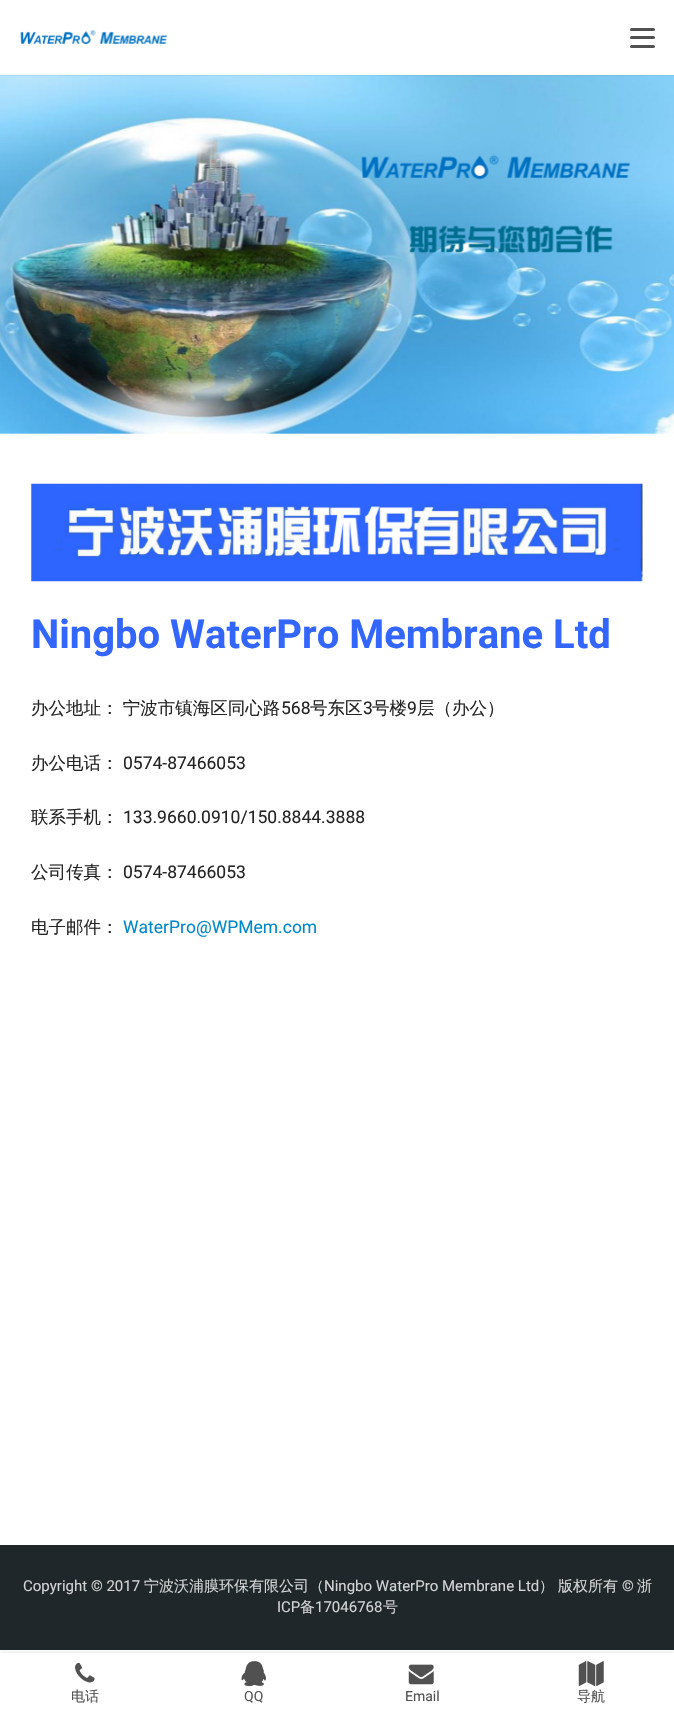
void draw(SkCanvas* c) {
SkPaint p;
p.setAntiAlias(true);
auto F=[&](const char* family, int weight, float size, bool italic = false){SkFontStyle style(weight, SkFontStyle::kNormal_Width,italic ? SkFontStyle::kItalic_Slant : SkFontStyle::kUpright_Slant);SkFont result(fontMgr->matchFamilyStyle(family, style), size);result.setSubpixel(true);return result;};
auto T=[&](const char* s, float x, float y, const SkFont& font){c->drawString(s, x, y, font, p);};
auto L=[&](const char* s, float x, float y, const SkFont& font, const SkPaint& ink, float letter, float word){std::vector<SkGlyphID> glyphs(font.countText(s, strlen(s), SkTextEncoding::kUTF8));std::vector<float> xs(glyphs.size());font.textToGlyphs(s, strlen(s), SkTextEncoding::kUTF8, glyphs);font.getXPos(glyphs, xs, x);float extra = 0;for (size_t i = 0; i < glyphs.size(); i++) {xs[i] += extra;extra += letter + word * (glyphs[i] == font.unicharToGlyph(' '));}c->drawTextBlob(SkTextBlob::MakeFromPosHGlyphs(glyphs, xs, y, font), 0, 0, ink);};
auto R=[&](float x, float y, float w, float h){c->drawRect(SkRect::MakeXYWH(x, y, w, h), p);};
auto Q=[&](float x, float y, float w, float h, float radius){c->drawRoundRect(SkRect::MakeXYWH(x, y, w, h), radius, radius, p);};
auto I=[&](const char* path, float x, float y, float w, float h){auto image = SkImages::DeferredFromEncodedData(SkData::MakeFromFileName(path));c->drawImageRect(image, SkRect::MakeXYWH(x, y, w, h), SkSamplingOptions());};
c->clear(0xffffffff);
I("2.png",0,75,674,359);
c->save();
c->clipRect(SkRect::MakeXYWH(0,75,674,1));
p.setColor(0x0d000000);
p.setMaskFilter(SkMaskFilter::MakeBlur(kNormal_SkBlurStyle, .5));
c->drawRect(SkRect::MakeXYWH(0,1,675,75),p);
p.setMaskFilter(nullptr);
c->restore();
I("1.png",20,30,148,15);
p.setColor(0xff515151);
Q(630,28,25,3,1.5);
Q(630,36,25,3,1.5);
Q(630,45,25,3,1.5);
I("3.png",31,483,612,99);
auto f1 = F("Roboto",700,40);
p.setColor(0xff3366ff);
T("Ningbo WaterPro Membrane Ltd",31,648,f1);
auto f2 = F("WenQuanYi Zen Hei",500,17.5);
p.setColor(0xff232323);
L("办公地址： 宁波市镇海区同心路",31,714,f2,p,0,-1);
auto f3 = F("Roboto",400,17.5);
T("568",281,714,f3);
T("号东区",310,714,f2);
T("3",363,714,f3);
T("号楼",372,714,f2);
T("9",407,714,f3);
T("层（办公）",417,714,f2);
T("办公电话：",31,769,f2);
T("0574-87466053",123,769,f3);
T("联系手机：",31,823,f2);
T("133.9660.0910/150.8844.3888",123,823,f3);
T("公司传真：",31,878,f2);
T("0574-87466053",123,878,f3);
T("电子邮件：",31,933,f2);
p.setColor(0xff0088cc);
T("WaterPro@WPMem.com",123,933,f3);
p.setColor(0xff20272b);
R(0,1545,674,105);
auto f4 = F("Roboto",400,15);
p.setColor(0xffd3d4d5);
T("Copyright © 2017",23,1591,f4);
auto f5 = F("WenQuanYi Zen Hei",500,15);
T("宁波沃浦膜环保有限公司（",144,1591,f5);
T("Ningbo WaterPro Membrane Ltd",324,1591,f4);
T("）",539,1591,f5);
T("版权所有",558,1591,f5);
T("©",622,1591,f4);
T("浙",637,1591,f5);
T("ICP",277,1612,f4);
T("备",300,1612,f5);
T("17046768",315,1612,f4);
T("号",383,1612,f5);
c->save();
c->clipRect(SkRect::MakeXYWH(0,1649,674,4));
p.setColor(0x0f262626);
p.setMaskFilter(SkMaskFilter::MakeBlur(kNormal_SkBlurStyle, 2));
c->drawRect(SkRect::MakeXYWH(0,1650,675,60),p);
p.setMaskFilter(nullptr);
c->restore();
I("4.png",75,1662,20,21);
auto f6 = F("WenQuanYi Zen Hei",500,14);
p.setColor(0xff515151);
T("电话",71,1701,f6);
I("5.png",241,1661,25,26);
auto f7 = F("Roboto",400,14);
T("QQ",244,1701,f7);
I("6.png",408,1664,26,21);
T("Email",405,1701,f7);
I("7.png",578,1661,26,25);
T("导航",577,1701,f6);
}
